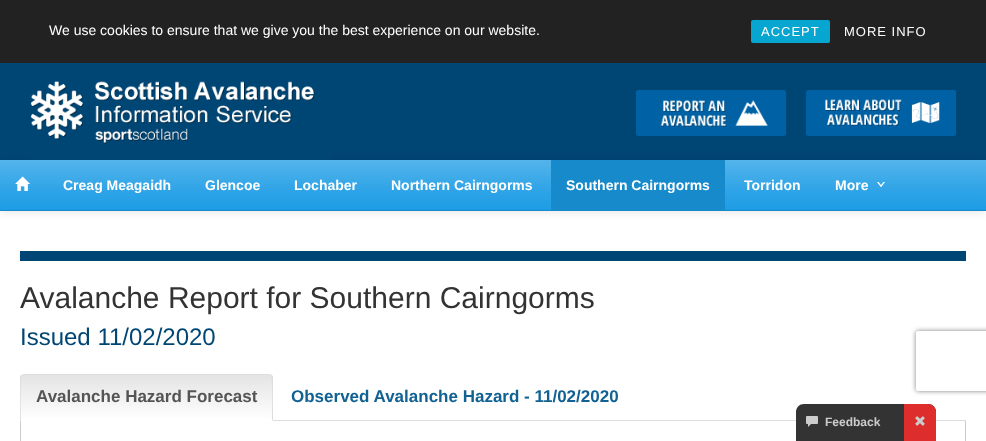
<!DOCTYPE html>
<meta charset="utf-8">
<style>body { margin: 0 } canvas { display: block }</style>
<canvas id="canvas" width="986" height="441"></canvas>
<img id="img1" src="images/1.png" hidden>
<img id="img2" src="images/2.png" hidden>
<img id="img3" src="images/3.png" hidden>
<img id="img4" src="images/4.png" hidden>
<img id="img5" src="images/5.png" hidden>
<img id="img6" src="images/6.png" hidden>
<img id="img7" src="images/7.png" hidden>
<script>
window.onload = function () {
    const canvas = document.getElementById('canvas');
    const context = canvas.getContext('2d');
    context.miterLimit = 4;
    context.fontKerning = 'normal';
    let gradient;

    context.fillStyle = 'rgb(255, 255, 255)';
    context.fillRect(0, 0, 986, 441);
    context.fillStyle = 'rgb(34, 34, 34)';
    context.fillRect(0, 0, 986, 63);
    context.fillStyle = 'rgb(7, 166, 208)';
    context.beginPath();
    context.roundRect(751, 20, 79, 23, 2);
    context.fill();
    context.fillStyle = 'rgb(0, 70, 117)';
    context.fillRect(0, 63, 986, 97);
    context.fillStyle = 'rgba(0, 0, 0, 0.1)';
    context.filter = 'blur(5px)';
    context.beginPath();
    context.rect(0, 161, 986, 51);
    context.fill();
    context.filter = 'none';
    context.drawImage(document.getElementById('img1'), 30, 81, 300, 79);
    context.drawImage(document.getElementById('img2'), 636, 90, 150, 46);
    context.drawImage(document.getElementById('img3'), 806, 90, 150, 46);
    gradient = context.createLinearGradient(493, 160, 493, 210);
    gradient.addColorStop(0, 'rgb(84, 180, 235)');
    gradient.addColorStop(0.6, 'rgb(47, 164, 231)');
    gradient.addColorStop(1, 'rgb(29, 156, 229)');
    context.fillStyle = gradient;
    context.fillRect(0, 160, 986, 50);
    context.fillStyle = 'rgb(23, 138, 204)';
    context.fillRect(0, 210, 986, 1);
    context.drawImage(document.getElementById('img4'), 15, 176, 15, 15);
    context.fillRect(551, 160, 174, 50);
    context.drawImage(document.getElementById('img5'), 877, 182, 8, 6);
    context.fillStyle = 'rgb(0, 70, 117)';
    context.fillRect(20, 251, 946, 10);
    context.fillStyle = 'rgb(221, 221, 221)';
    context.fillRect(273, 420, 693, 1);
    context.save();
    context.beginPath();
    context.roundRect(20, 374, 253, 47, [4, 4, 0, 0]);
    context.clip();
    gradient = context.createLinearGradient(147, 375, 147, 420);
    gradient.addColorStop(0, 'rgb(228, 228, 228)');
    gradient.addColorStop(1, 'rgb(255, 255, 255)');
    context.fillStyle = gradient;
    context.fillRect(20, 375, 253, 45);
    context.restore();
    context.beginPath();
    context.moveTo(24, 374);
    context.lineTo(21, 375);
    context.lineTo(22, 376);
    context.lineTo(24, 375);
    context.lineTo(269, 375);
    context.lineTo(271, 376);
    context.lineTo(272, 375);
    context.lineTo(269, 374);
    context.closePath();
    context.fill();
    context.beginPath();
    context.moveTo(273, 421);
    context.lineTo(273, 378);
    context.bezierCurveTo(273, 377, 272, 376, 272, 375);
    context.lineTo(271, 376);
    context.bezierCurveTo(273, 378, 272, 415, 272, 420);
    context.closePath();
    context.fill();
    context.fillStyle = 'rgb(255, 255, 255)';
    context.beginPath();
    context.moveTo(273, 421);
    context.lineTo(272, 420);
    context.lineTo(21, 420);
    context.lineTo(20, 421);
    context.closePath();
    context.fill();
    context.fillStyle = 'rgb(221, 221, 221)';
    context.beginPath();
    context.moveTo(20, 421);
    context.lineTo(21, 420);
    context.bezierCurveTo(21, 415, 20, 378, 22, 376);
    context.lineTo(21, 375);
    context.lineTo(20, 378);
    context.closePath();
    context.fill();
    context.fillStyle = 'rgb(204, 204, 204)';
    context.fillRect(965, 421, 1, 20);
    context.fillRect(20, 421, 1, 20);
    context.fillStyle = 'rgb(51, 51, 51)';
    context.beginPath();
    context.moveTo(804, 404);
    context.lineTo(928, 404);
    context.bezierCurveTo(932.5, 404, 936, 407.5, 936, 412);
    context.lineTo(936, 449);
    context.lineTo(796, 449);
    context.lineTo(796, 412);
    context.bezierCurveTo(796, 407.5, 799.5, 404, 804, 404);
    context.closePath();
    context.fill();
    context.save();
    context.beginPath();
    context.moveTo(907, 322);
    context.lineTo(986, 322);
    context.lineTo(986, 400);
    context.lineTo(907, 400);
    context.closePath();
    context.moveTo(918, 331);
    context.lineTo(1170, 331);
    context.bezierCurveTo(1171, 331, 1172, 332, 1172, 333);
    context.lineTo(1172, 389);
    context.bezierCurveTo(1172, 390, 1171, 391, 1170, 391);
    context.lineTo(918, 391);
    context.bezierCurveTo(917, 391, 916, 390, 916, 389);
    context.lineTo(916, 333);
    context.bezierCurveTo(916, 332, 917, 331, 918, 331);
    context.closePath();
    context.clip('evenodd');
    context.fillStyle = 'rgb(128, 128, 128)';
    context.filter = 'blur(2.5px)';
    context.beginPath();
    context.roundRect(916, 331, 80, 60, 2);
    context.fill();
    context.filter = 'none';
    context.restore();
    context.drawImage(document.getElementById('img6'), 806, 416, 12, 11);
    context.fillStyle = 'rgb(221, 45, 45)';
    context.beginPath();
    context.roundRect(904, 404, 32, 37, [0, 8, 0, 0]);
    context.fill();
    context.drawImage(document.getElementById('img7'), 915, 416, 10, 10);
    context.font = '14px Liberation Sans';
    context.fillStyle = 'rgb(255, 255, 255)';
    context.fillText('We use cookies to ensure that we give you the best experience on our website.', 49, 35);
    context.letterSpacing = '1px';
    context.font = '13px Liberation Sans';
    context.fillText('ACCEPT', 761, 36);
    context.fillText('MORE INFO', 844, 36);
    context.letterSpacing = '0px';
    context.font = 'bold 14px Liberation Sans';
    context.fillText('Creag Meagaidh', 63, 190);
    context.fillText('Glencoe', 205, 190);
    context.fillText('Lochaber', 294, 190);
    context.fillText('Northern Cairngorms', 391, 190);
    context.fillText('Southern Cairngorms', 566, 190);
    context.fillText('Torridon', 744, 190);
    context.fillText('More', 835, 190);
    context.font = '30px Liberation Sans';
    context.fillStyle = 'rgb(51, 51, 51)';
    context.fillText('Avalanche Report for Southern Cairngorms', 20, 308);
    context.font = '24px Liberation Sans';
    context.fillStyle = 'rgb(0, 70, 116)';
    context.fillText('Issued 11/02/2020', 20, 345);
    context.font = 'bold 17px Liberation Sans';
    context.fillStyle = 'rgb(85, 85, 85)';
    context.fillText('Avalanche Hazard Forecast', 36, 402);
    context.fillStyle = 'rgb(17, 98, 147)';
    context.fillText('Observed Avalanche Hazard - 11/02/2020', 291, 402);
    context.font = 'bold 12px Liberation Sans';
    context.fillStyle = 'rgb(204, 204, 204)';
    context.fillText('Feedback', 825, 426);
};
</script>
